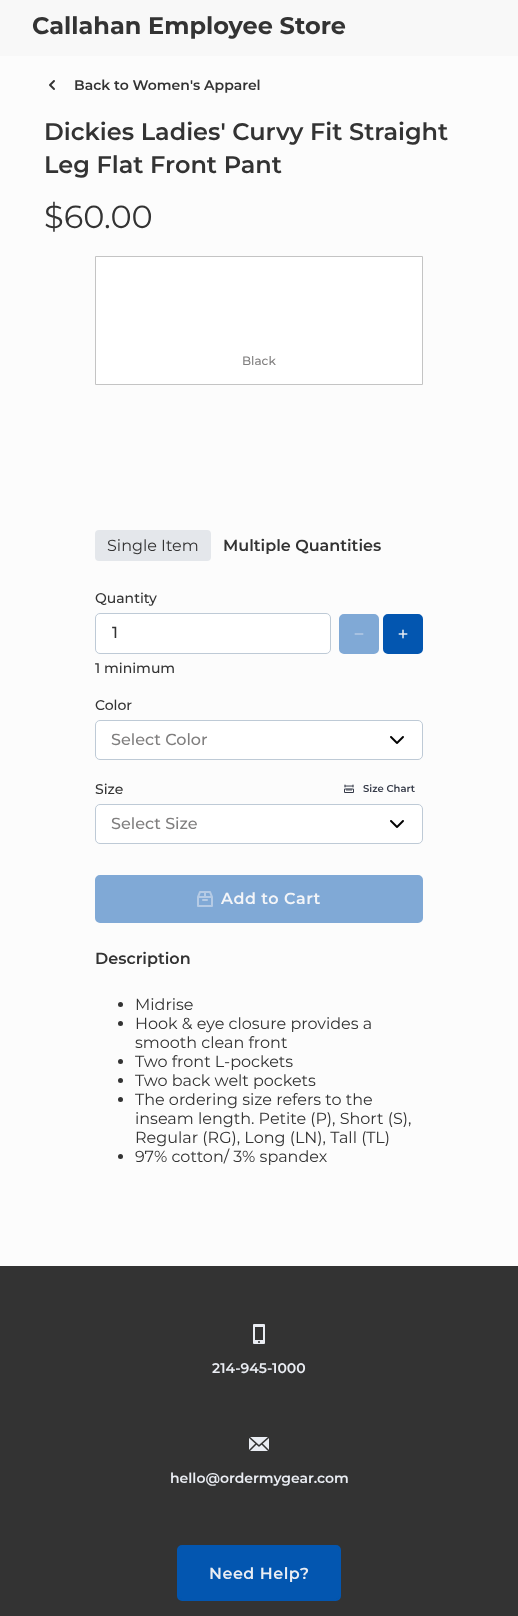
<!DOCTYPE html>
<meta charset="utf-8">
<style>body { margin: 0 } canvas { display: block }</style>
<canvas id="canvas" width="518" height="1616"></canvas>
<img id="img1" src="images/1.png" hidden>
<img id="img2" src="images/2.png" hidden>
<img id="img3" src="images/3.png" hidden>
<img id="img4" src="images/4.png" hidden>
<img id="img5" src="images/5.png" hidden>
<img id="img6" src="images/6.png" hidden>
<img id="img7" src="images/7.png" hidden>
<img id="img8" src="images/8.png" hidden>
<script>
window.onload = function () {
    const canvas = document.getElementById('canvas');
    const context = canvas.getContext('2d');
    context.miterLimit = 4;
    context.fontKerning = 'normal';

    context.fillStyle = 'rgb(252, 252, 252)';
    context.fillRect(0, 0, 518, 1616);
    context.fillStyle = 'rgb(248, 248, 248)';
    context.fillRect(0, 0, 518, 56);
    context.drawImage(document.getElementById('img1'), 49, 80, 6, 10);
    context.fillStyle = 'rgb(255, 255, 255)';
    context.beginPath();
    context.rect(95.5, 256.5, 327, 128);
    context.fill();
    context.strokeStyle = 'rgb(196, 196, 196)';
    context.stroke();
    context.fillStyle = 'rgb(228, 231, 235)';
    context.beginPath();
    context.roundRect(95, 530, 116, 31, 4);
    context.fill();
    context.fillStyle = 'rgb(255, 255, 255)';
    context.beginPath();
    context.roundRect(95.5, 613.5, 235, 40, 4.5);
    context.fill();
    context.strokeStyle = 'rgb(190, 202, 214)';
    context.stroke();
    context.fillStyle = 'rgb(128, 169, 214)';
    context.beginPath();
    context.roundRect(340, 615, 38, 38, 4);
    context.fill();
    context.strokeStyle = 'rgb(128, 169, 214)';
    context.lineWidth = 2;
    context.stroke();
    context.drawImage(document.getElementById('img2'), 354, 633, 10, 2);
    context.fillStyle = 'rgb(3, 86, 176)';
    context.beginPath();
    context.roundRect(384, 615, 38, 38, 4);
    context.fill();
    context.strokeStyle = 'rgb(3, 86, 176)';
    context.stroke();
    context.drawImage(document.getElementById('img3'), 398, 629, 10, 10);
    context.fillStyle = 'rgb(255, 255, 255)';
    context.beginPath();
    context.roundRect(95.5, 720.5, 327, 39, 4.5);
    context.fill();
    context.strokeStyle = 'rgb(190, 202, 214)';
    context.lineWidth = 1;
    context.stroke();
    context.drawImage(document.getElementById('img4'), 390, 736, 14, 8);
    context.drawImage(document.getElementById('img5'), 344, 784, 10, 9);
    context.beginPath();
    context.roundRect(95.5, 804.5, 327, 39, 4.5);
    context.fill();
    context.stroke();
    context.drawImage(document.getElementById('img4'), 390, 820, 14, 8);
    context.fillStyle = 'rgb(128, 169, 214)';
    context.beginPath();
    context.roundRect(96, 876, 326, 46, 4);
    context.fill();
    context.strokeStyle = 'rgb(128, 169, 214)';
    context.lineWidth = 2;
    context.stroke();
    context.drawImage(document.getElementById('img6'), 197, 891, 16, 16);
    context.fillStyle = 'rgb(51, 51, 51)';
    context.beginPath();
    context.arc(120.5, 1004.5, 2.5, 0, 2 * Math.PI);
    context.fill();
    context.beginPath();
    context.arc(120.5, 1023.5, 2.5, 0, 2 * Math.PI);
    context.fill();
    context.beginPath();
    context.arc(120.5, 1061.5, 2.5, 0, 2 * Math.PI);
    context.fill();
    context.beginPath();
    context.arc(120.5, 1080.5, 2.5, 0, 2 * Math.PI);
    context.fill();
    context.beginPath();
    context.arc(120.5, 1099.5, 2.5, 0, 2 * Math.PI);
    context.fill();
    context.beginPath();
    context.arc(120.5, 1156.5, 2.5, 0, 2 * Math.PI);
    context.fill();
    context.fillRect(0, 1266, 518, 350);
    context.drawImage(document.getElementById('img7'), 253, 1324, 12, 20);
    context.drawImage(document.getElementById('img8'), 249, 1437, 20, 14);
    context.fillStyle = 'rgb(3, 86, 176)';
    context.beginPath();
    context.roundRect(178, 1546, 162, 54, 4);
    context.fill();
    context.strokeStyle = 'rgb(3, 86, 176)';
    context.stroke();
    context.font = 'bold 24px Montserrat';
    context.fillStyle = 'rgb(51, 51, 51)';
    context.fillText('Callahan Employee Store', 32, 34);
    context.font = '600 14px Montserrat';
    context.fillText('Back to Women\'s Apparel', 74, 90);
    context.font = '600 24px Montserrat';
    context.fillText('Dickies Ladies\' Curvy Fit Straight', 44, 140);
    context.fillText('Leg Flat Front Pant', 44, 173);
    context.font = '32px Montserrat';
    context.fillText('$60.00', 44, 228);
    context.font = '500 12px Montserrat';
    context.fillStyle = 'rgb(128, 127, 127)';
    context.fillText('Black', 242, 365);
    context.font = '16px Montserrat';
    context.fillStyle = 'rgb(51, 51, 51)';
    context.fillText('Single Item', 107, 551);
    context.font = '600 16px Montserrat';
    context.fillText('Multiple Quantities', 223, 551);
    context.font = '500 14px Montserrat';
    context.fillText('Quantity', 95, 603);
    context.font = '500 16px Montserrat';
    context.fillText('1', 112, 638);
    context.font = '500 14px Montserrat';
    context.fillText('1 minimum', 95, 673);
    context.fillText('Color', 95, 710);
    context.font = '500 16px Montserrat';
    context.fillStyle = 'rgb(128, 127, 127)';
    context.fillText('Select Color', 111, 745);
    context.font = '500 14px Montserrat';
    context.fillStyle = 'rgb(51, 51, 51)';
    context.fillText('Size', 95, 794);
    context.font = '600 10px Montserrat';
    context.fillStyle = 'rgb(53, 58, 72)';
    context.fillText('Size Chart', 363, 792);
    context.font = '500 16px Montserrat';
    context.fillStyle = 'rgb(128, 127, 127)';
    context.fillText('Select Size', 111, 829);
    context.letterSpacing = '0.5px';
    context.font = '600 16px Montserrat';
    context.fillStyle = 'rgb(243, 245, 248)';
    context.fillText('Add to Cart', 221, 904);
    context.letterSpacing = '0px';
    context.fillStyle = 'rgb(51, 51, 51)';
    context.fillText('Description', 95, 964);
    context.font = '16px Montserrat';
    context.fillText('Midrise', 135, 1010);
    context.fillText('Hook & eye closure provides a', 135, 1029);
    context.fillText('smooth clean front', 135, 1048);
    context.fillText('Two front L-pockets', 135, 1067);
    context.fillText('Two back welt pockets', 135, 1086);
    context.fillText('The ordering size refers to the', 135, 1105);
    context.fillText('inseam length. Petite (P), Short (S),', 135, 1124);
    context.fillText('Regular (RG), Long (LN), Tall (TL)', 135, 1143);
    context.fillText('97% cotton/ 3% spandex', 135, 1162);
    context.font = '600 14px Montserrat';
    context.fillStyle = 'rgb(234, 237, 243)';
    context.fillText('214-945-1000', 212, 1373);
    context.fillText('hello@ordermygear.com', 170, 1483);
    context.letterSpacing = '0.5px';
    context.font = '600 16px Montserrat';
    context.fillText('Need Help?', 209, 1579);
};
</script>
